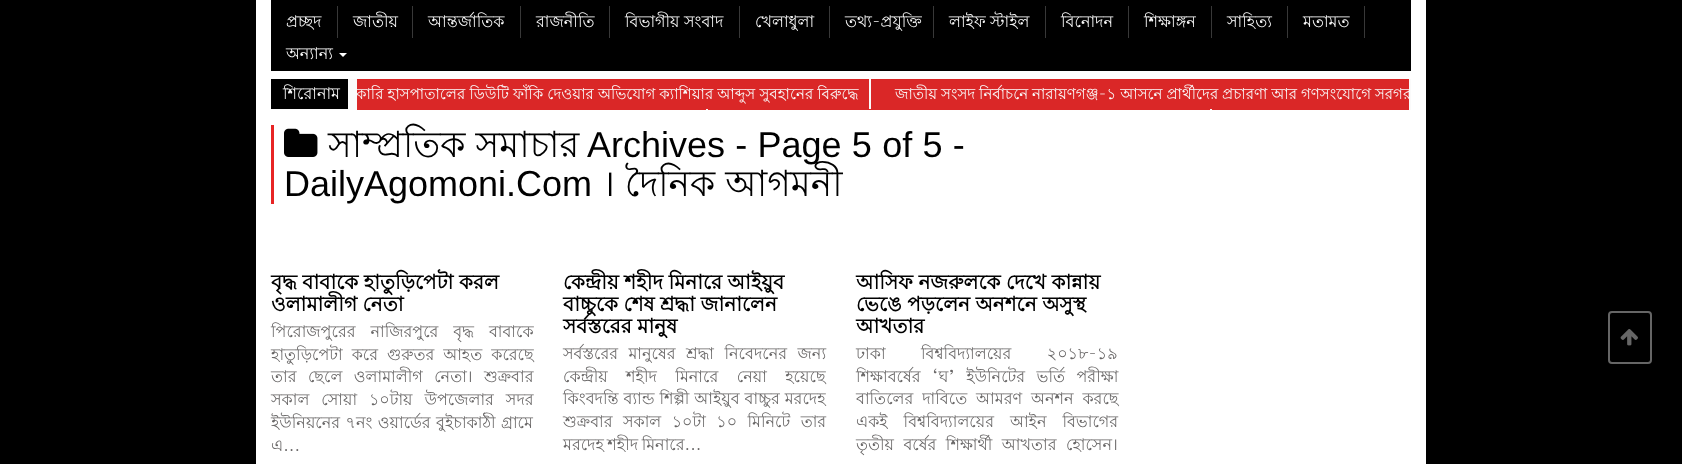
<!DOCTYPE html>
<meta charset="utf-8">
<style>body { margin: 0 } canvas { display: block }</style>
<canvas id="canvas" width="1682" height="464"></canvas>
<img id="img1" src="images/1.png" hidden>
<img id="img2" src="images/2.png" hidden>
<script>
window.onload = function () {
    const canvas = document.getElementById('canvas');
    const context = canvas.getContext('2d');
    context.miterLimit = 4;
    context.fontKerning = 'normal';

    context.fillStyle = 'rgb(0, 0, 0)';
    context.fillRect(0, 0, 1682, 464);
    context.fillStyle = 'rgb(255, 255, 255)';
    context.fillRect(256, 0, 1170, 464);
    context.fillStyle = 'rgb(0, 0, 0)';
    context.fillRect(271, 0, 1140, 71);
    context.fillStyle = 'rgb(56, 56, 56)';
    context.fillRect(337, 6, 1, 32);
    context.fillRect(412, 6, 1, 32);
    context.fillRect(520, 6, 1, 32);
    context.fillRect(609, 6, 1, 32);
    context.fillRect(739, 6, 1, 32);
    context.fillRect(829, 6, 1, 32);
    context.fillRect(933, 6, 1, 32);
    context.fillRect(1045, 6, 1, 32);
    context.fillRect(1128, 6, 1, 32);
    context.fillRect(1211, 6, 1, 32);
    context.fillRect(1287, 6, 1, 32);
    context.fillRect(1364, 6, 1, 32);
    context.fillStyle = 'rgb(255, 255, 255)';
    context.beginPath();
    context.moveTo(339, 53);
    context.lineTo(347, 53);
    context.lineTo(343, 57);
    context.closePath();
    context.fill();
    context.fillStyle = 'rgb(250, 250, 250)';
    context.fillRect(271, 79, 1140, 31);
    context.fillStyle = 'rgb(0, 0, 0)';
    context.fillRect(271, 79, 77, 30);
    context.fillStyle = 'rgb(218, 39, 39)';
    context.fillRect(357, 79, 512, 30);
    context.fillRect(871, 79, 538, 30);
    context.fillRect(357, 109, 349, 1);
    context.fillRect(708, 109, 502, 1);
    context.fillRect(1212, 109, 197, 1);
    context.fillStyle = 'rgb(231, 36, 36)';
    context.fillRect(271, 125, 3, 79);
    context.drawImage(document.getElementById('img1'), 284, 128, 34, 29);
    context.beginPath();
    context.roundRect(1609, 312, 42, 51, 3);
    context.strokeStyle = 'rgb(102, 102, 102)';
    context.lineWidth = 2;
    context.stroke();
    context.drawImage(document.getElementById('img2'), 1620, 329, 18, 17);
    context.font = '16px Lohit Bengali';
    context.fillStyle = 'rgb(250, 250, 250)';
    context.fillText('প্রচ্ছদ', 286, 27);
    context.fillText('জাতীয়', 353, 27);
    context.fillText('আন্তর্জাতিক', 428, 27);
    context.fillText('রাজনীতি', 536, 27);
    context.fillText('বিভাগীয় সংবাদ', 625, 27);
    context.fillText('খেলাধুলা', 755, 27);
    context.fillText('তথ্য-প্রযুক্তি', 845, 27);
    context.fillText('লাইফ স্টাইল', 949, 27);
    context.fillText('বিনোদন', 1061, 27);
    context.fillText('শিক্ষাঙ্গন', 1144, 27);
    context.fillText('সাহিত্য', 1227, 27);
    context.fillText('মতামত', 1303, 27);
    context.fillText('অন্যান্য', 286, 59);
    context.fillText('শিরোনাম', 283, 99);
    context.font = '15px Lohit Bengali';
    context.fillText('কারি হাসপাতালের ডিউটি ফাঁকি দেওয়ার অভিযোগ ক্যাশিয়ার আব্দুস সুবহানের বিরুদ্ধে', 356, 99);
    context.save();
    context.beginPath();
    context.rect(357, 79, 1052, 31);
    context.clip();
    context.wordSpacing = '-0.25px';
    context.fillText('জাতীয় সংসদ নির্বাচনে নারায়ণগঞ্জ-১ আসনে প্রার্থীদের প্রচারণা আর গণসংযোগে সরগর', 895, 99);
    context.restore();
    context.font = '36px Lohit Bengali';
    context.fillStyle = 'rgb(0, 0, 0)';
    context.fillText('সাম্প্রতিক সমাচার', 328, 157);
    context.wordSpacing = '0.25px';
    context.font = '36px Liberation Sans';
    context.fillText('Archives - Page 5 of 5 -', 587, 157);
    context.wordSpacing = '0px';
    context.fillText('DailyAgomoni.Com', 284, 196);
    context.font = '36px Lohit Bengali';
    context.fillText('। দৈনিক আগমনী', 602, 196);
    context.font = 'bold 20px Lohit Bengali';
    context.fillText('বৃদ্ধ বাবাকে হাতুড়িপেটা করল', 271, 289);
    context.fillText('ওলামালীগ নেতা', 271, 311);
    context.wordSpacing = '10.5px';
    context.font = '16px Lohit Bengali';
    context.fillStyle = 'rgb(105, 103, 103)';
    context.fillText('পিরোজপুরের নাজিরপুরে বৃদ্ধ বাবাকে', 271, 337);
    context.wordSpacing = '4.5px';
    context.fillText('হাতুড়িপেটা করে গুরুতর আহত করেছে', 271, 360);
    context.wordSpacing = '7px';
    context.fillText('তার ছেলে ওলামালীগ নেতা। শুক্রবার', 271, 382);
    context.wordSpacing = '7.5px';
    context.fillText('সকাল সোয়া ১০টায় উপজেলার সদর', 271, 405);
    context.wordSpacing = '1px';
    context.fillText('ইউনিয়নের ৭নং ওয়ার্ডের বুইচাকাঠী গ্রামে', 271, 428);
    context.wordSpacing = '0px';
    context.fillText('এ...', 271, 451);
    context.font = 'bold 20px Lohit Bengali';
    context.fillStyle = 'rgb(0, 0, 0)';
    context.fillText('কেন্দ্রীয় শহীদ মিনারে আইয়ুব', 563, 289);
    context.fillText('বাচ্চুকে শেষ শ্রদ্ধা জানালেন', 563, 311);
    context.fillText('সর্বস্তরের মানুষ', 563, 333);
    context.wordSpacing = '6px';
    context.font = '16px Lohit Bengali';
    context.fillStyle = 'rgb(105, 103, 103)';
    context.fillText('সর্বস্তরের মানুষের শ্রদ্ধা নিবেদনের জন্য', 563, 359);
    context.wordSpacing = '14px';
    context.fillText('কেন্দ্রীয় শহীদ মিনারে নেয়া হয়েছে', 563, 382);
    context.wordSpacing = '0.5px';
    context.fillText('কিংবদন্তি ব্যান্ড শিল্পী আইয়ুব বাচ্চুর মরদেহ', 563, 404);
    context.wordSpacing = '6px';
    context.fillText('শুক্রবার সকাল ১০টা ১০ মিনিটে তার', 563, 427);
    context.wordSpacing = '-1px';
    context.fillText('মরদেহ শহীদ মিনারে...', 563, 450);
    context.wordSpacing = '0px';
    context.font = 'bold 20px Lohit Bengali';
    context.fillStyle = 'rgb(0, 0, 0)';
    context.fillText('আসিফ নজরুলকে দেখে কান্নায়', 856, 289);
    context.fillText('ভেঙে পড়লেন অনশনে অসুস্থ', 856, 311);
    context.fillText('আখতার', 856, 333);
    context.wordSpacing = '31px';
    context.font = '16px Lohit Bengali';
    context.fillStyle = 'rgb(105, 103, 103)';
    context.fillText('ঢাকা বিশ্ববিদ্যালয়ের ২০১৮-১৯', 856, 359);
    context.wordSpacing = '7px';
    context.fillText('শিক্ষাবর্ষের ‘ঘ’ ইউনিটের ভর্তি পরীক্ষা', 856, 382);
    context.wordSpacing = '4.5px';
    context.fillText('বাতিলের দাবিতে আমরণ অনশন করছে', 856, 404);
    context.wordSpacing = '11.5px';
    context.fillText('একই বিশ্ববিদ্যালয়ের আইন বিভাগের', 856, 427);
    context.wordSpacing = '5px';
    context.fillText('তৃতীয় বর্ষের শিক্ষার্থী আখতার হোসেন।', 856, 450);
};
</script>
